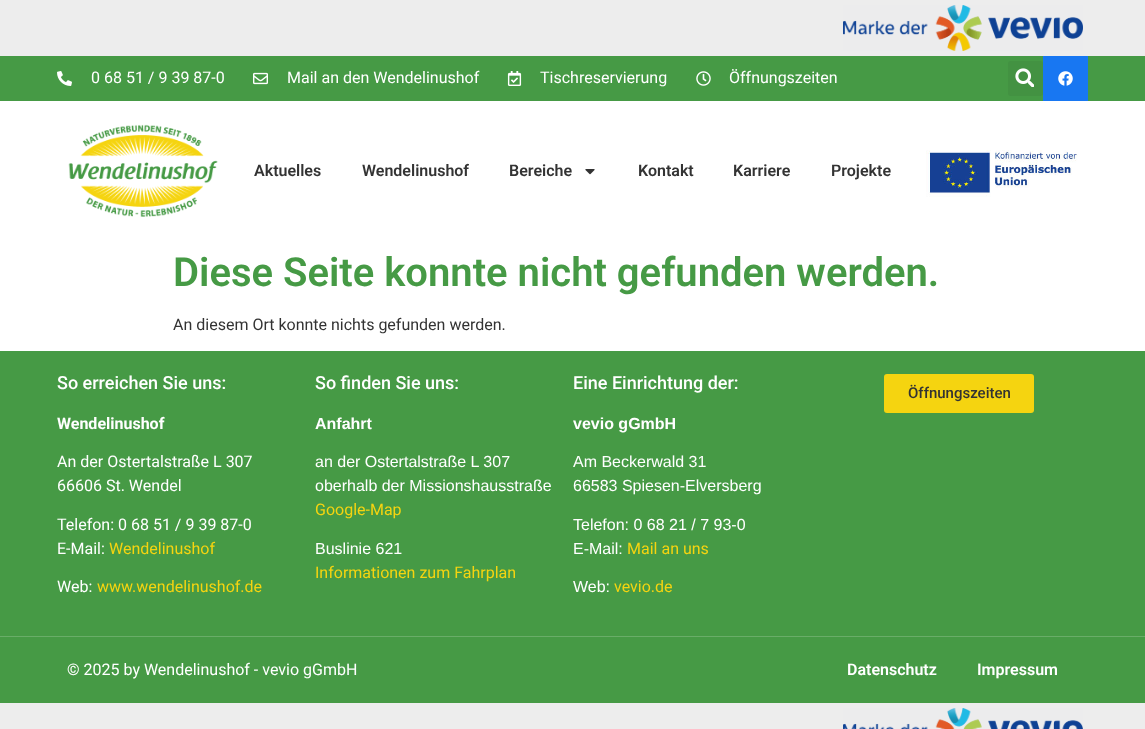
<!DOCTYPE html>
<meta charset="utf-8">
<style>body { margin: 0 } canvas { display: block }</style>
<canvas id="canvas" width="1145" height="729"></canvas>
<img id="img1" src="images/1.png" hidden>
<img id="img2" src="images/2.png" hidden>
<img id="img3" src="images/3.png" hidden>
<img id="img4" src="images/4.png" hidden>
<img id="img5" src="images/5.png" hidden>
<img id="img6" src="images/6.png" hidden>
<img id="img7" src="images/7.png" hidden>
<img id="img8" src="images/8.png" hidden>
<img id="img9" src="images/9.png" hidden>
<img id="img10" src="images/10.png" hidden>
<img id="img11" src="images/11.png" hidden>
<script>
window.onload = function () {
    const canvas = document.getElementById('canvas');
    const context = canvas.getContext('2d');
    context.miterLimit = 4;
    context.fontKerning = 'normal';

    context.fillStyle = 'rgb(255, 255, 255)';
    context.fillRect(0, 0, 1145, 729);
    context.fillStyle = 'rgb(237, 237, 237)';
    context.fillRect(0, 0, 1145, 56);
    context.drawImage(document.getElementById('img1'), 843, 5, 240, 46);
    context.fillStyle = 'rgb(70, 154, 69)';
    context.fillRect(0, 56, 1145, 45);
    context.drawImage(document.getElementById('img2'), 57, 71, 15, 15);
    context.drawImage(document.getElementById('img3'), 253, 72, 15, 13);
    context.drawImage(document.getElementById('img4'), 507, 71, 15, 15);
    context.drawImage(document.getElementById('img5'), 696, 71, 15, 15);
    context.fillStyle = 'rgb(67, 146, 66)';
    context.beginPath();
    context.roundRect(1008, 61, 35, 35, 3);
    context.fill();
    context.drawImage(document.getElementById('img6'), 1015, 68, 19, 19);
    context.fillStyle = 'rgb(24, 119, 242)';
    context.fillRect(1043, 56, 45, 45);
    context.drawImage(document.getElementById('img7'), 1058, 71, 15, 15);
    context.drawImage(document.getElementById('img8'), 68, 124, 150, 93);
    context.drawImage(document.getElementById('img9'), 585, 169, 10, 6);
    context.drawImage(document.getElementById('img10'), 926, 150, 152, 47);
    context.fillStyle = 'rgb(70, 154, 69)';
    context.fillRect(0, 351, 1145, 285);
    context.fillStyle = 'rgb(245, 212, 16)';
    context.beginPath();
    context.roundRect(884, 374, 150, 39, 3);
    context.fill();
    context.fillStyle = 'rgb(70, 154, 69)';
    context.fillRect(0, 637, 1145, 66);
    context.fillStyle = 'rgb(105, 173, 104)';
    context.fillRect(0, 636, 1145, 1);
    context.fillStyle = 'rgb(237, 237, 237)';
    context.fillRect(0, 703, 1145, 26);
    context.drawImage(document.getElementById('img11'), 843, 708, 240, 21);
    context.font = '16px Roboto';
    context.fillStyle = 'rgb(255, 255, 255)';
    context.fillText('0 68 51 / 9 39 87-0', 91, 83);
    context.fillText('Mail an den Wendelinushof', 287, 83);
    context.fillText('Tischreservierung', 540, 83);
    context.fillText('Öffnungszeiten', 729, 83);
    context.font = '600 16px Roboto';
    context.fillStyle = 'rgb(51, 51, 51)';
    context.fillText('Aktuelles', 254, 176);
    context.fillText('Wendelinushof', 362, 176);
    context.fillText('Bereiche', 509, 176);
    context.fillText('Kontakt', 638, 176);
    context.fillText('Karriere', 733, 176);
    context.fillText('Projekte', 831, 176);
    context.font = '600 40px Roboto';
    context.fillStyle = 'rgb(70, 154, 69)';
    context.fillText('Diese Seite konnte nicht gefunden werden.', 173, 286);
    context.font = '16px Roboto';
    context.fillStyle = 'rgb(51, 51, 51)';
    context.fillText('An diesem Ort konnte nichts gefunden werden.', 173, 330);
    context.font = '500 18px Roboto';
    context.fillStyle = 'rgb(255, 255, 255)';
    context.fillText('So erreichen Sie uns:', 57, 389);
    context.font = 'bold 16px Roboto';
    context.fillText('Wendelinushof', 57, 429);
    context.font = '16px Roboto';
    context.fillText('An der Ostertalstraße L 307', 57, 467);
    context.fillText('66606 St. Wendel', 57, 491);
    context.fillText('Telefon: 0 68 51 / 9 39 87-0', 57, 530);
    context.fillText('E-Mail:', 57, 554);
    context.fillStyle = 'rgb(245, 212, 16)';
    context.fillText('Wendelinushof', 109, 554);
    context.fillStyle = 'rgb(255, 255, 255)';
    context.fillText('Web:', 57, 592);
    context.fillStyle = 'rgb(245, 212, 16)';
    context.fillText('www.wendelinushof.de', 97, 592);
    context.font = '500 18px Roboto';
    context.fillStyle = 'rgb(255, 255, 255)';
    context.fillText('So finden Sie uns:', 315, 389);
    context.font = 'bold 16px Liberation Sans';
    context.fillText('Anfahrt', 315, 429);
    context.font = '16px Liberation Sans';
    context.fillText('an der Ostertalstraße L 307', 315, 467);
    context.fillText('oberhalb der Missionshausstraße', 315, 491);
    context.font = '16px Roboto';
    context.fillStyle = 'rgb(245, 212, 16)';
    context.fillText('Google-Map', 315, 515);
    context.font = '16px Liberation Sans';
    context.fillStyle = 'rgb(255, 255, 255)';
    context.fillText('Buslinie 621', 315, 554);
    context.font = '16px Roboto';
    context.fillStyle = 'rgb(245, 212, 16)';
    context.fillText('Informationen zum Fahrplan', 315, 578);
    context.font = '500 18px Roboto';
    context.fillStyle = 'rgb(255, 255, 255)';
    context.fillText('Eine Einrichtung der:', 573, 389);
    context.font = 'bold 16px Liberation Sans';
    context.fillText('vevio gGmbH', 573, 429);
    context.font = '16px Liberation Sans';
    context.fillText('Am Beckerwald 31', 573, 467);
    context.fillText('66583 Spiesen-Elversberg', 573, 491);
    context.fillText('Telefon: 0 68 21 / 7 93-0', 573, 530);
    context.fillText('E-Mail:', 573, 554);
    context.font = '16px Roboto';
    context.fillStyle = 'rgb(245, 212, 16)';
    context.fillText('Mail an uns', 627, 554);
    context.font = '16px Liberation Sans';
    context.fillStyle = 'rgb(255, 255, 255)';
    context.fillText('Web:', 573, 592);
    context.font = '16px Roboto';
    context.fillStyle = 'rgb(245, 212, 16)';
    context.fillText('vevio.de', 614, 592);
    context.font = '500 15px Roboto';
    context.fillStyle = 'rgb(51, 51, 51)';
    context.fillText('Öffnungszeiten', 908, 398);
    context.font = '16px Roboto';
    context.fillStyle = 'rgb(255, 255, 255)';
    context.fillText('© 2025 by Wendelinushof - vevio gGmbH', 67, 675);
    context.font = '600 16px Roboto';
    context.fillText('Datenschutz', 847, 675);
    context.fillText('Impressum', 977, 675);
};
</script>
